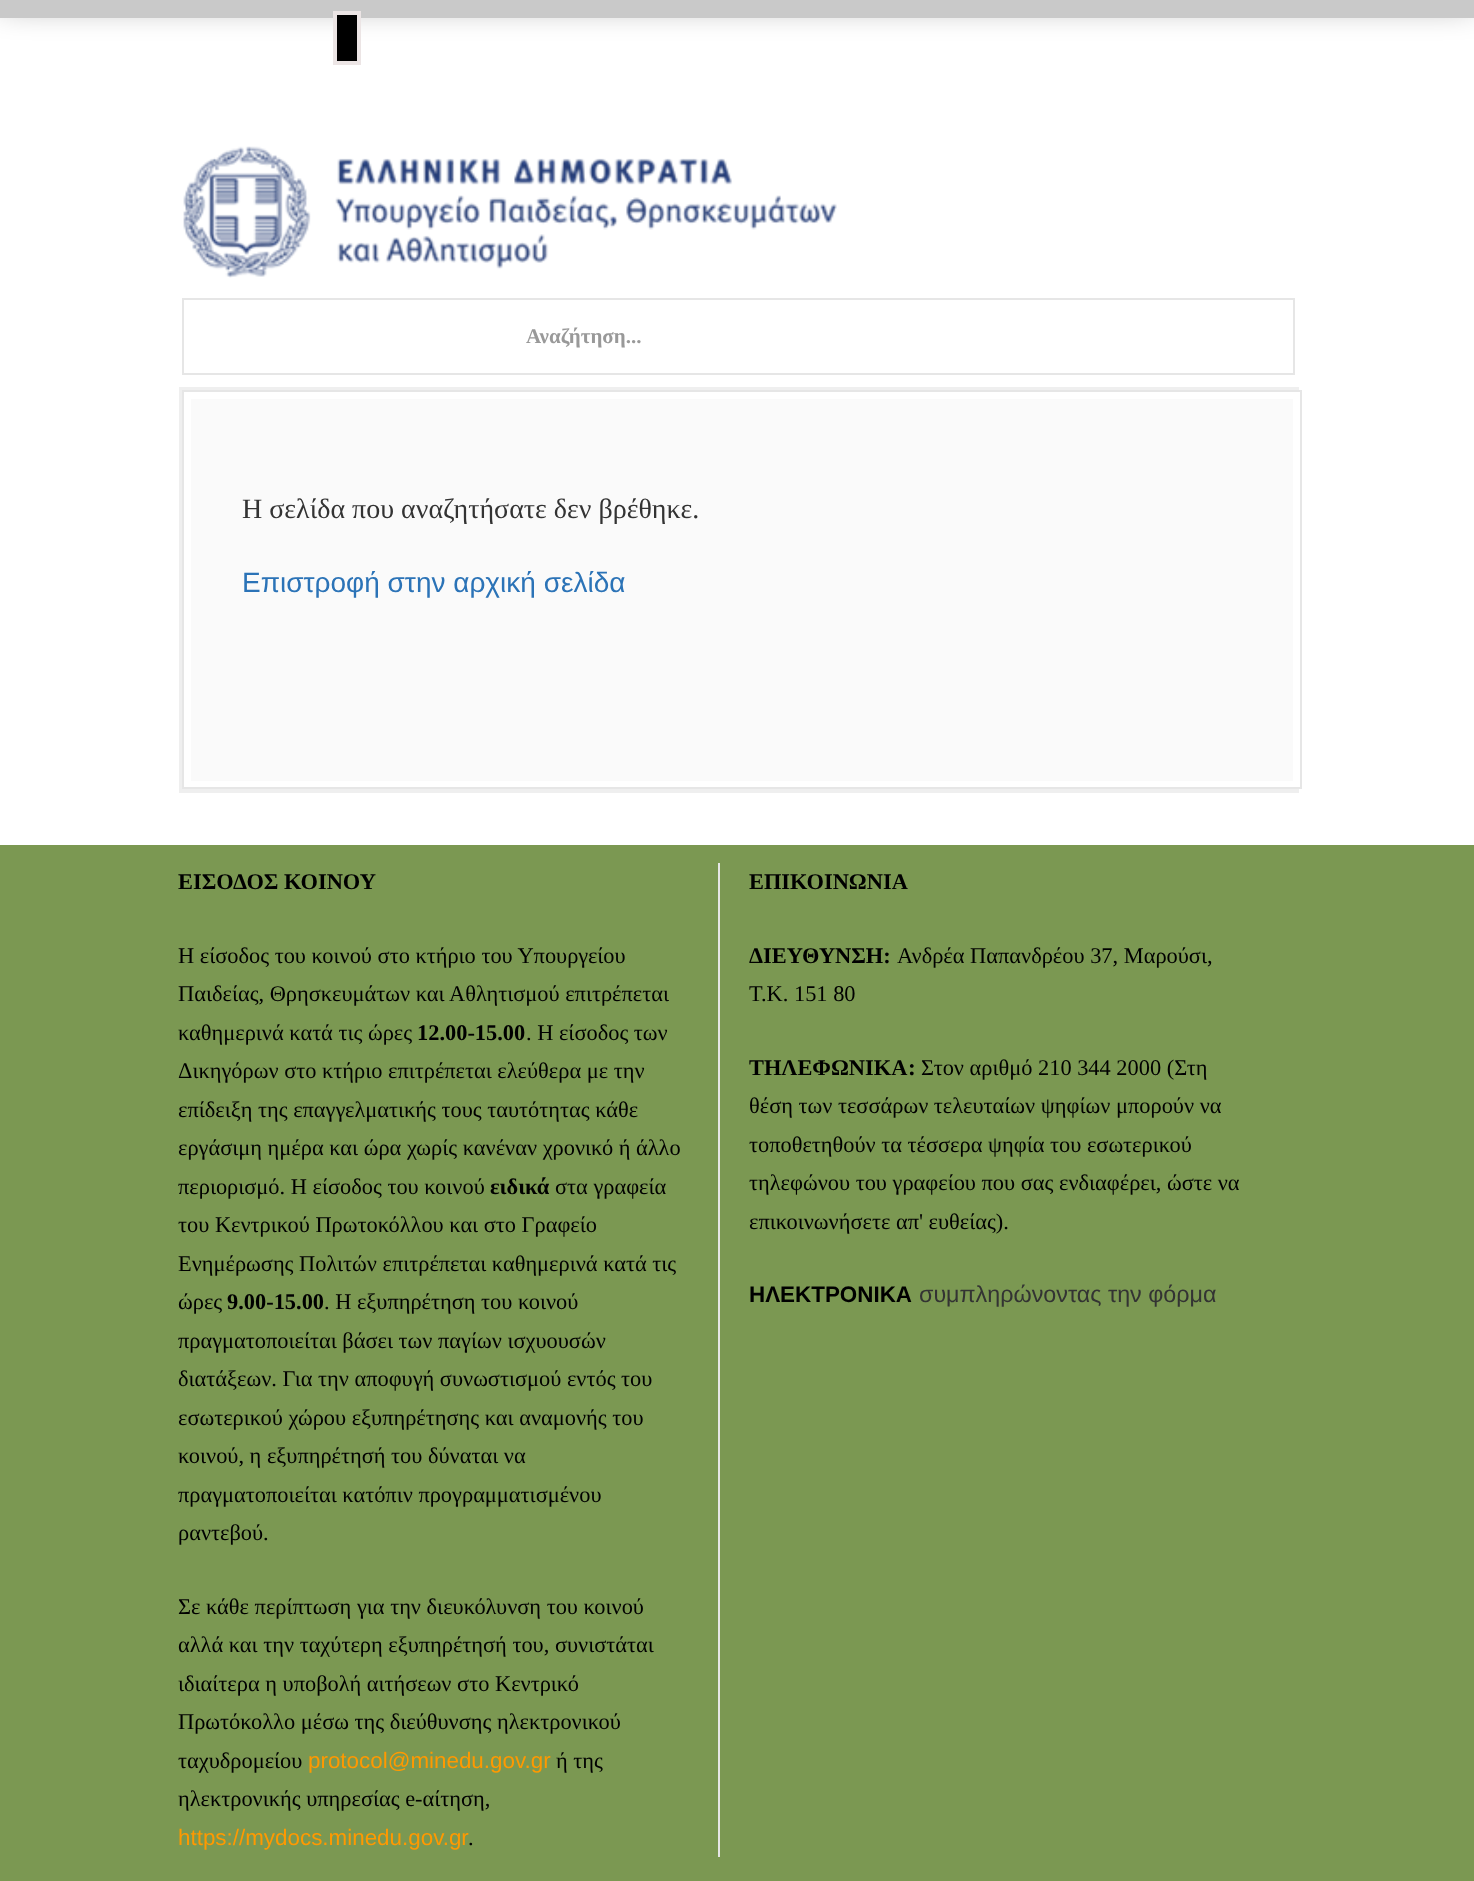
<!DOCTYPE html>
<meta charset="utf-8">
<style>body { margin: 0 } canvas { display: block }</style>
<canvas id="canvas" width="1474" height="1881"></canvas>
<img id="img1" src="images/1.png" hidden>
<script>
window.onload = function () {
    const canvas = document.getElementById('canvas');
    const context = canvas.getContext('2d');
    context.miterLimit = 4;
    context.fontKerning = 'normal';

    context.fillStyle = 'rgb(255, 255, 255)';
    context.fillRect(0, 0, 1474, 1881);
    context.fillStyle = 'rgba(0, 0, 0, 0.6)';
    context.filter = 'blur(17.5px)';
    context.beginPath();
    context.rect(0, -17, 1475, 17);
    context.fill();
    context.filter = 'none';
    context.fillStyle = 'rgb(201, 201, 201)';
    context.fillRect(0, 0, 1474, 18);
    context.fillStyle = 'rgb(0, 0, 0)';
    context.beginPath();
    context.rect(335, 13, 24, 50);
    context.fill();
    context.strokeStyle = 'rgb(236, 229, 229)';
    context.lineWidth = 4;
    context.stroke();
    context.drawImage(document.getElementById('img1'), 183, 146, 654, 132);
    context.strokeStyle = 'rgb(230, 230, 230)';
    context.lineWidth = 2;
    context.strokeRect(183, 299, 1111, 75);
    context.fillStyle = 'rgb(239, 239, 239)';
    context.fillRect(179, 387, 1120, 406);
    context.fillStyle = 'rgb(255, 255, 255)';
    context.fillRect(184, 392, 1115, 395);
    context.strokeRect(183, 391, 1118, 397);
    context.fillStyle = 'rgb(250, 250, 250)';
    context.fillRect(191, 399, 1102, 382);
    context.fillStyle = 'rgb(123, 152, 82)';
    context.fillRect(0, 845, 1474, 1036);
    context.fillStyle = 'rgb(230, 230, 230)';
    context.fillRect(718, 863, 2, 994);
    context.font = 'bold 21px Liberation Serif';
    context.fillStyle = 'rgb(153, 153, 153)';
    context.fillText('Αναζήτηση...', 526, 343);
    context.font = '28px Liberation Serif';
    context.fillStyle = 'rgb(51, 51, 51)';
    context.fillText('Η σελίδα που αναζητήσατε δεν βρέθηκε.', 242, 518);
    context.font = '28px Liberation Sans';
    context.fillStyle = 'rgb(43, 115, 183)';
    context.fillText('Επιστροφή στην αρχική σελίδα', 242, 592);
    context.font = 'bold 22.4px Liberation Serif';
    context.fillStyle = 'rgb(0, 0, 0)';
    context.fillText('ΕΙΣΟΔΟΣ ΚΟΙΝΟΥ', 178, 889);
    context.font = '22.4px Liberation Serif';
    context.fillText('Η είσοδος του κοινού στο κτήριο του Υπουργείου', 178, 963);
    context.fillText('Παιδείας, Θρησκευμάτων και Αθλητισμού επιτρέπεται', 178, 1001);
    context.fillText('καθημερινά κατά τις ώρες', 178, 1040);
    context.font = 'bold 22.4px Liberation Serif';
    context.fillText('12.00-15.00', 417, 1040);
    context.font = '22.4px Liberation Serif';
    context.fillText('. Η είσοδος των', 526, 1040);
    context.fillText('Δικηγόρων στο κτήριο επιτρέπεται ελεύθερα με την', 178, 1078);
    context.fillText('επίδειξη της επαγγελματικής τους ταυτότητας κάθε', 178, 1117);
    context.fillText('εργάσιμη ημέρα και ώρα χωρίς κανέναν χρονικό ή άλλο', 178, 1155);
    context.fillText('περιορισμό. Η είσοδος του κοινού', 178, 1194);
    context.font = 'bold 22.4px Liberation Serif';
    context.fillText('ειδικά', 490, 1194);
    context.font = '22.4px Liberation Serif';
    context.fillText('στα γραφεία', 555, 1194);
    context.fillText('του Κεντρικού Πρωτοκόλλου και στο Γραφείο', 178, 1232);
    context.fillText('Ενημέρωσης Πολιτών επιτρέπεται καθημερινά κατά τις', 178, 1271);
    context.fillText('ώρες', 178, 1309);
    context.font = 'bold 22.4px Liberation Serif';
    context.fillText('9.00-15.00', 227, 1309);
    context.font = '22.4px Liberation Serif';
    context.fillText('. Η εξυπηρέτηση του κοινού', 324, 1309);
    context.fillText('πραγματοποιείται βάσει των παγίων ισχυουσών', 178, 1348);
    context.fillText('διατάξεων. Για την αποφυγή συνωστισμού εντός του', 178, 1386);
    context.fillText('εσωτερικού χώρου εξυπηρέτησης και αναμονής του', 178, 1425);
    context.fillText('κοινού, η εξυπηρέτησή του δύναται να', 178, 1463);
    context.fillText('πραγματοποιείται κατόπιν προγραμματισμένου', 178, 1502);
    context.fillText('ραντεβού.', 178, 1540);
    context.fillText('Σε κάθε περίπτωση για την διευκόλυνση του κοινού', 178, 1614);
    context.fillText('αλλά και την ταχύτερη εξυπηρέτησή του, συνιστάται', 178, 1652);
    context.fillText('ιδιαίτερα η υποβολή αιτήσεων στο Κεντρικό', 178, 1691);
    context.fillText('Πρωτόκολλο μέσω της διεύθυνσης ηλεκτρονικού', 178, 1729);
    context.fillText('ταχυδρομείου', 178, 1768);
    context.font = '22.4px Liberation Sans';
    context.fillStyle = 'rgb(255, 153, 0)';
    context.fillText('protocol@minedu.gov.gr', 308, 1768);
    context.font = '22.4px Liberation Serif';
    context.fillStyle = 'rgb(0, 0, 0)';
    context.fillText('ή της', 556, 1768);
    context.fillText('ηλεκτρονικής υπηρεσίας e-αίτηση,', 178, 1806);
    context.font = '22.4px Liberation Sans';
    context.fillStyle = 'rgb(255, 153, 0)';
    context.fillText('https://mydocs.minedu.gov.gr', 178, 1845);
    context.font = '22.4px Liberation Serif';
    context.fillStyle = 'rgb(0, 0, 0)';
    context.fillText('.', 468, 1845);
    context.font = 'bold 22.4px Liberation Serif';
    context.fillText('ΕΠΙΚΟΙΝΩΝΙΑ', 749, 889);
    context.fillText('ΔΙΕΥΘΥΝΣΗ:', 749, 963);
    context.font = '22.4px Liberation Serif';
    context.fillText('Ανδρέα Παπανδρέου 37, Μαρούσι,', 897, 963);
    context.fillText('Τ.Κ. 151 80', 749, 1001);
    context.font = 'bold 22.4px Liberation Serif';
    context.fillText('ΤΗΛΕΦΩΝΙΚΑ', 749, 1075);
    context.font = 'bold 23.3px Liberation Serif';
    context.fillText(':', 908, 1075);
    context.font = '22.4px Liberation Serif';
    context.fillText('Στον αριθμό 210 344 2000 (Στη', 921, 1075);
    context.fillText('θέση των τεσσάρων τελευταίων ψηφίων μπορούν να', 749, 1113);
    context.fillText('τοποθετηθούν τα τέσσερα ψηφία του εσωτερικού', 749, 1152);
    context.fillText('τηλεφώνου του γραφείου που σας ενδιαφέρει, ώστε να', 749, 1190);
    context.fillText('επικοινωνήσετε απ\' ευθείας).', 749, 1229);
    context.font = 'bold 22.4px Liberation Sans';
    context.fillText('ΗΛΕΚΤΡΟΝΙΚΑ', 749, 1302);
    context.font = '23.3px Liberation Sans';
    context.fillStyle = 'rgb(51, 51, 51)';
    context.fillText('συμπληρώνοντας την φόρμα', 919, 1302);
};
</script>
